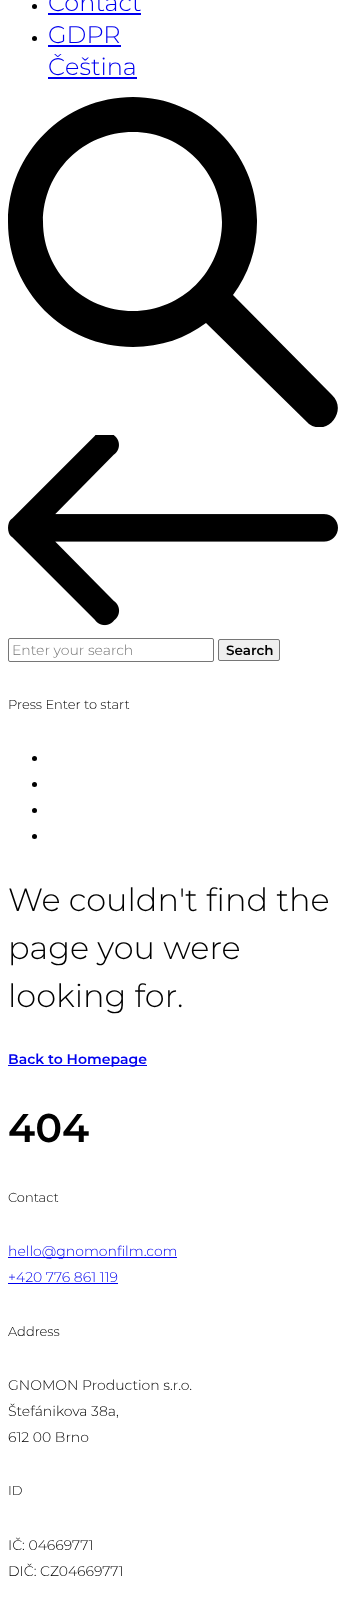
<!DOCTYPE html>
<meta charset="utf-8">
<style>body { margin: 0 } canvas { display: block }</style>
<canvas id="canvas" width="346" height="1598"></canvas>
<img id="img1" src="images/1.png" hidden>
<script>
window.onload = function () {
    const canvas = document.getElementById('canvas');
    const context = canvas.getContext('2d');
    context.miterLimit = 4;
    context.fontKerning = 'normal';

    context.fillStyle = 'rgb(255, 255, 255)';
    context.fillRect(0, 0, 346, 1598);
    context.fillStyle = 'rgb(0, 0, 0)';
    context.beginPath();
    context.arc(34.5, 6.5, 2.5, 0, 2 * Math.PI);
    context.fill();
    context.fillStyle = 'rgb(0, 0, 238)';
    context.fillRect(48, 13, 93, 2);
    context.fillStyle = 'rgb(0, 0, 0)';
    context.beginPath();
    context.arc(34.5, 38.5, 2.5, 0, 2 * Math.PI);
    context.fill();
    context.fillStyle = 'rgb(0, 0, 238)';
    context.fillRect(48, 45, 73, 2);
    context.fillRect(48, 77, 89, 2);
    context.save();
    context.beginPath();
    context.rect(8, 97, 330, 330);
    context.clip();
    context.fillStyle = 'rgb(0, 0, 0)';
    context.beginPath();
    context.moveTo(332, 395);
    context.lineTo(233, 295);
    context.bezierCurveTo(248, 275, 257, 250, 257, 222);
    context.bezierCurveTo(258, 153, 201, 97, 133, 97);
    context.bezierCurveTo(64, 97, 8, 153, 8, 222);
    context.bezierCurveTo(8, 291, 64, 347, 133, 347);
    context.bezierCurveTo(161, 347, 186, 338, 206, 323);
    context.lineTo(309, 424);
    context.bezierCurveTo(328, 437, 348, 410, 332, 395);
    context.closePath();
    context.moveTo(43, 222);
    context.bezierCurveTo(43, 172, 83, 132, 133, 132);
    context.bezierCurveTo(182, 132, 222, 172, 222, 222);
    context.bezierCurveTo(222, 271, 182, 311, 133, 311);
    context.bezierCurveTo(83, 311, 43, 271, 43, 222);
    context.closePath();
    context.fill();
    context.restore();
    context.drawImage(document.getElementById('img1'), 8, 435, 330, 191);
    context.beginPath();
    context.roundRect(8.5, 638.5, 205, 23, 1.5);
    context.strokeStyle = 'rgb(118, 118, 118)';
    context.stroke();
    context.fillStyle = 'rgb(239, 239, 239)';
    context.beginPath();
    context.roundRect(218.5, 639.5, 61, 21, 1.5);
    context.fill();
    context.stroke();
    context.fillStyle = 'rgb(0, 0, 0)';
    context.beginPath();
    context.arc(34.5, 758.5, 2.5, 0, 2 * Math.PI);
    context.fill();
    context.beginPath();
    context.arc(34.5, 784.5, 2.5, 0, 2 * Math.PI);
    context.fill();
    context.beginPath();
    context.arc(34.5, 810.5, 2.5, 0, 2 * Math.PI);
    context.fill();
    context.beginPath();
    context.arc(34.5, 836.5, 2.5, 0, 2 * Math.PI);
    context.fill();
    context.fillStyle = 'rgb(0, 0, 238)';
    context.fillRect(8, 1065, 139, 1);
    context.fillRect(8, 1257, 169, 1);
    context.fillRect(8, 1283, 110, 1);
    context.font = '300 24px Montserrat';
    context.fillText('Contact', 48, 11);
    context.fillText('GDPR', 48, 43);
    context.fillText('Čeština', 48, 75);
    context.font = '300 14px Montserrat';
    context.fillStyle = 'rgb(117, 117, 117)';
    context.fillText('Enter your search', 12, 655);
    context.font = '600 13.5px Montserrat';
    context.fillStyle = 'rgb(0, 0, 0)';
    context.fillText('Search', 226, 655);
    context.font = '300 13px Montserrat';
    context.fillText('Press Enter to start', 8, 709);
    context.font = '300 32px Montserrat';
    context.fillText('We couldn\'t find the', 8, 911);
    context.fillText('page you were', 8, 959);
    context.fillText('looking for.', 8, 1007);
    context.font = '600 14px Montserrat';
    context.fillStyle = 'rgb(0, 0, 238)';
    context.fillText('Back to Homepage', 8, 1064);
    context.font = '600 40px Montserrat';
    context.fillStyle = 'rgb(0, 0, 0)';
    context.fillText('404', 8, 1142);
    context.font = '300 13px Montserrat';
    context.fillText('Contact', 8, 1202);
    context.font = '300 14px Montserrat';
    context.fillStyle = 'rgb(0, 0, 238)';
    context.fillText('hello@gnomonfilm.com', 8, 1256);
    context.fillText('+420 776 861 119', 8, 1282);
    context.font = '300 13px Montserrat';
    context.fillStyle = 'rgb(0, 0, 0)';
    context.fillText('Address', 8, 1336);
    context.font = '300 14px Montserrat';
    context.fillText('GNOMON Production s.r.o.', 8, 1390);
    context.fillText('Štefánikova 38a,', 8, 1416);
    context.fillText('612 00 Brno', 8, 1442);
    context.font = '300 13px Montserrat';
    context.fillText('ID', 8, 1495);
    context.font = '300 14px Montserrat';
    context.fillText('IČ: 04669771', 8, 1550);
    context.fillText('DIČ: CZ04669771', 8, 1576);
};
</script>
